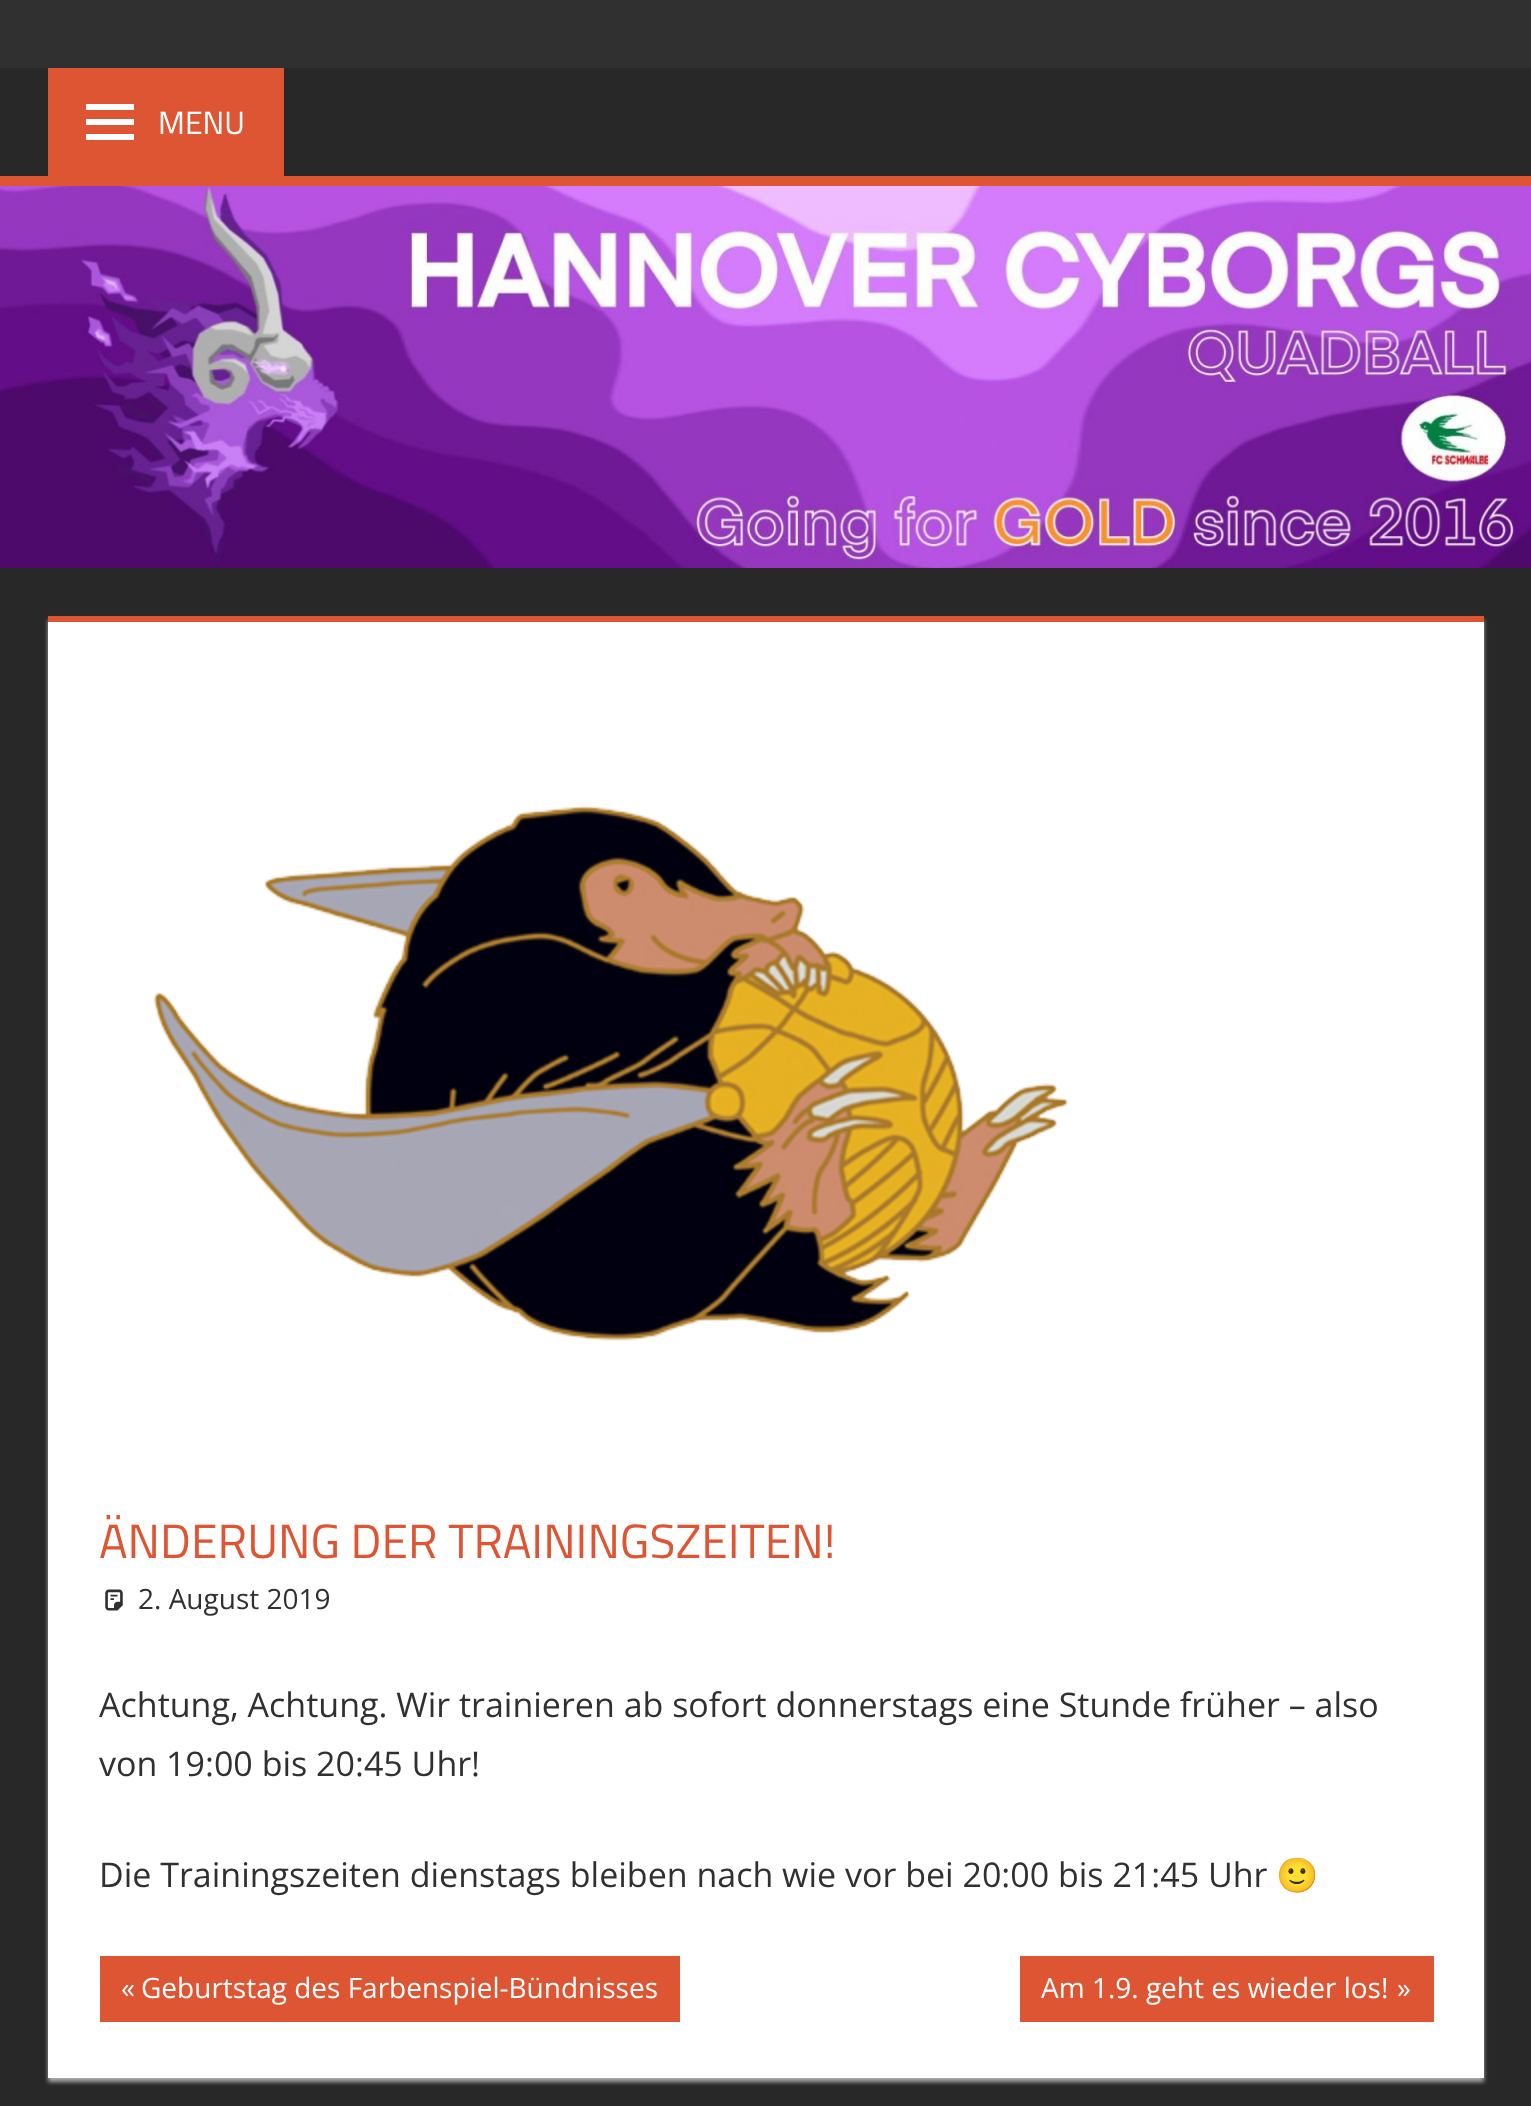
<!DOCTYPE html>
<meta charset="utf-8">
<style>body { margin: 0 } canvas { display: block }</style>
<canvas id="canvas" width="1531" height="2106"></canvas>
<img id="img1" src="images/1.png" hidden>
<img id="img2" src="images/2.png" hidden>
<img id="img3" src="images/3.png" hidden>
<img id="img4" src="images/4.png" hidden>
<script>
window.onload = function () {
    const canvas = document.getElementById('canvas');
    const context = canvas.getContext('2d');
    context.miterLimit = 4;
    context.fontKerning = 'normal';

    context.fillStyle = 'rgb(40, 40, 40)';
    context.fillRect(0, 0, 1531, 2106);
    context.fillStyle = 'rgb(48, 48, 48)';
    context.fillRect(0, 0, 1531, 68);
    context.fillStyle = 'rgb(221, 85, 51)';
    context.fillRect(0, 176, 1531, 10);
    context.fillRect(48, 68, 236, 108);
    context.drawImage(document.getElementById('img1'), 86, 104, 48, 36);
    context.drawImage(document.getElementById('img2'), 0, 186, 1531, 382);
    context.fillStyle = 'rgb(170, 170, 170)';
    context.filter = 'blur(2px)';
    context.beginPath();
    context.rect(48, 620, 1436, 1462);
    context.fill();
    context.filter = 'none';
    context.fillStyle = 'rgb(255, 255, 255)';
    context.fillRect(48, 622, 1436, 1456);
    context.fillStyle = 'rgb(221, 85, 51)';
    context.fillRect(48, 616, 1436, 6);
    context.drawImage(document.getElementById('img3'), 153, 805, 916, 536);
    context.drawImage(document.getElementById('img4'), 105, 1589, 18, 22);
    context.fillRect(100, 1956, 580, 66);
    context.fillRect(1020, 1956, 414, 66);
    context.font = '32px Titillium Web';
    context.fillStyle = 'rgb(255, 255, 255)';
    context.fillText('MENU', 158, 134);
    context.font = '48px Titillium Web';
    context.fillStyle = 'rgb(221, 85, 51)';
    context.fillText('ÄNDERUNG DER TRAININGSZEITEN!', 99, 1558);
    context.font = '28px Open Sans';
    context.fillStyle = 'rgb(48, 48, 48)';
    context.fillText('2. August 2019', 138, 1609);
    context.font = '34px Open Sans';
    context.fillText('Achtung, Achtung. Wir trainieren ab sofort donnerstags eine Stunde früher – also', 99, 1717);
    context.fillText('von 19:00 bis 20:45 Uhr!', 99, 1776);
    context.fillText('Die Trainingszeiten dienstags bleiben nach wie vor bei 20:00 bis 21:45 Uhr', 99, 1887);
    context.font = '34px Noto Color Emoji';
    context.fillText('🙂', 1276, 1887);
    context.font = '28px Open Sans';
    context.fillStyle = 'rgb(255, 255, 255)';
    context.fillText('«', 121, 1998);
    context.fillText('Geburtstag des Farbenspiel-Bündnisses', 141, 1998);
    context.fillText('Am 1.9. geht es wieder los!', 1041, 1998);
    context.fillText('»', 1397, 1998);
};
</script>
